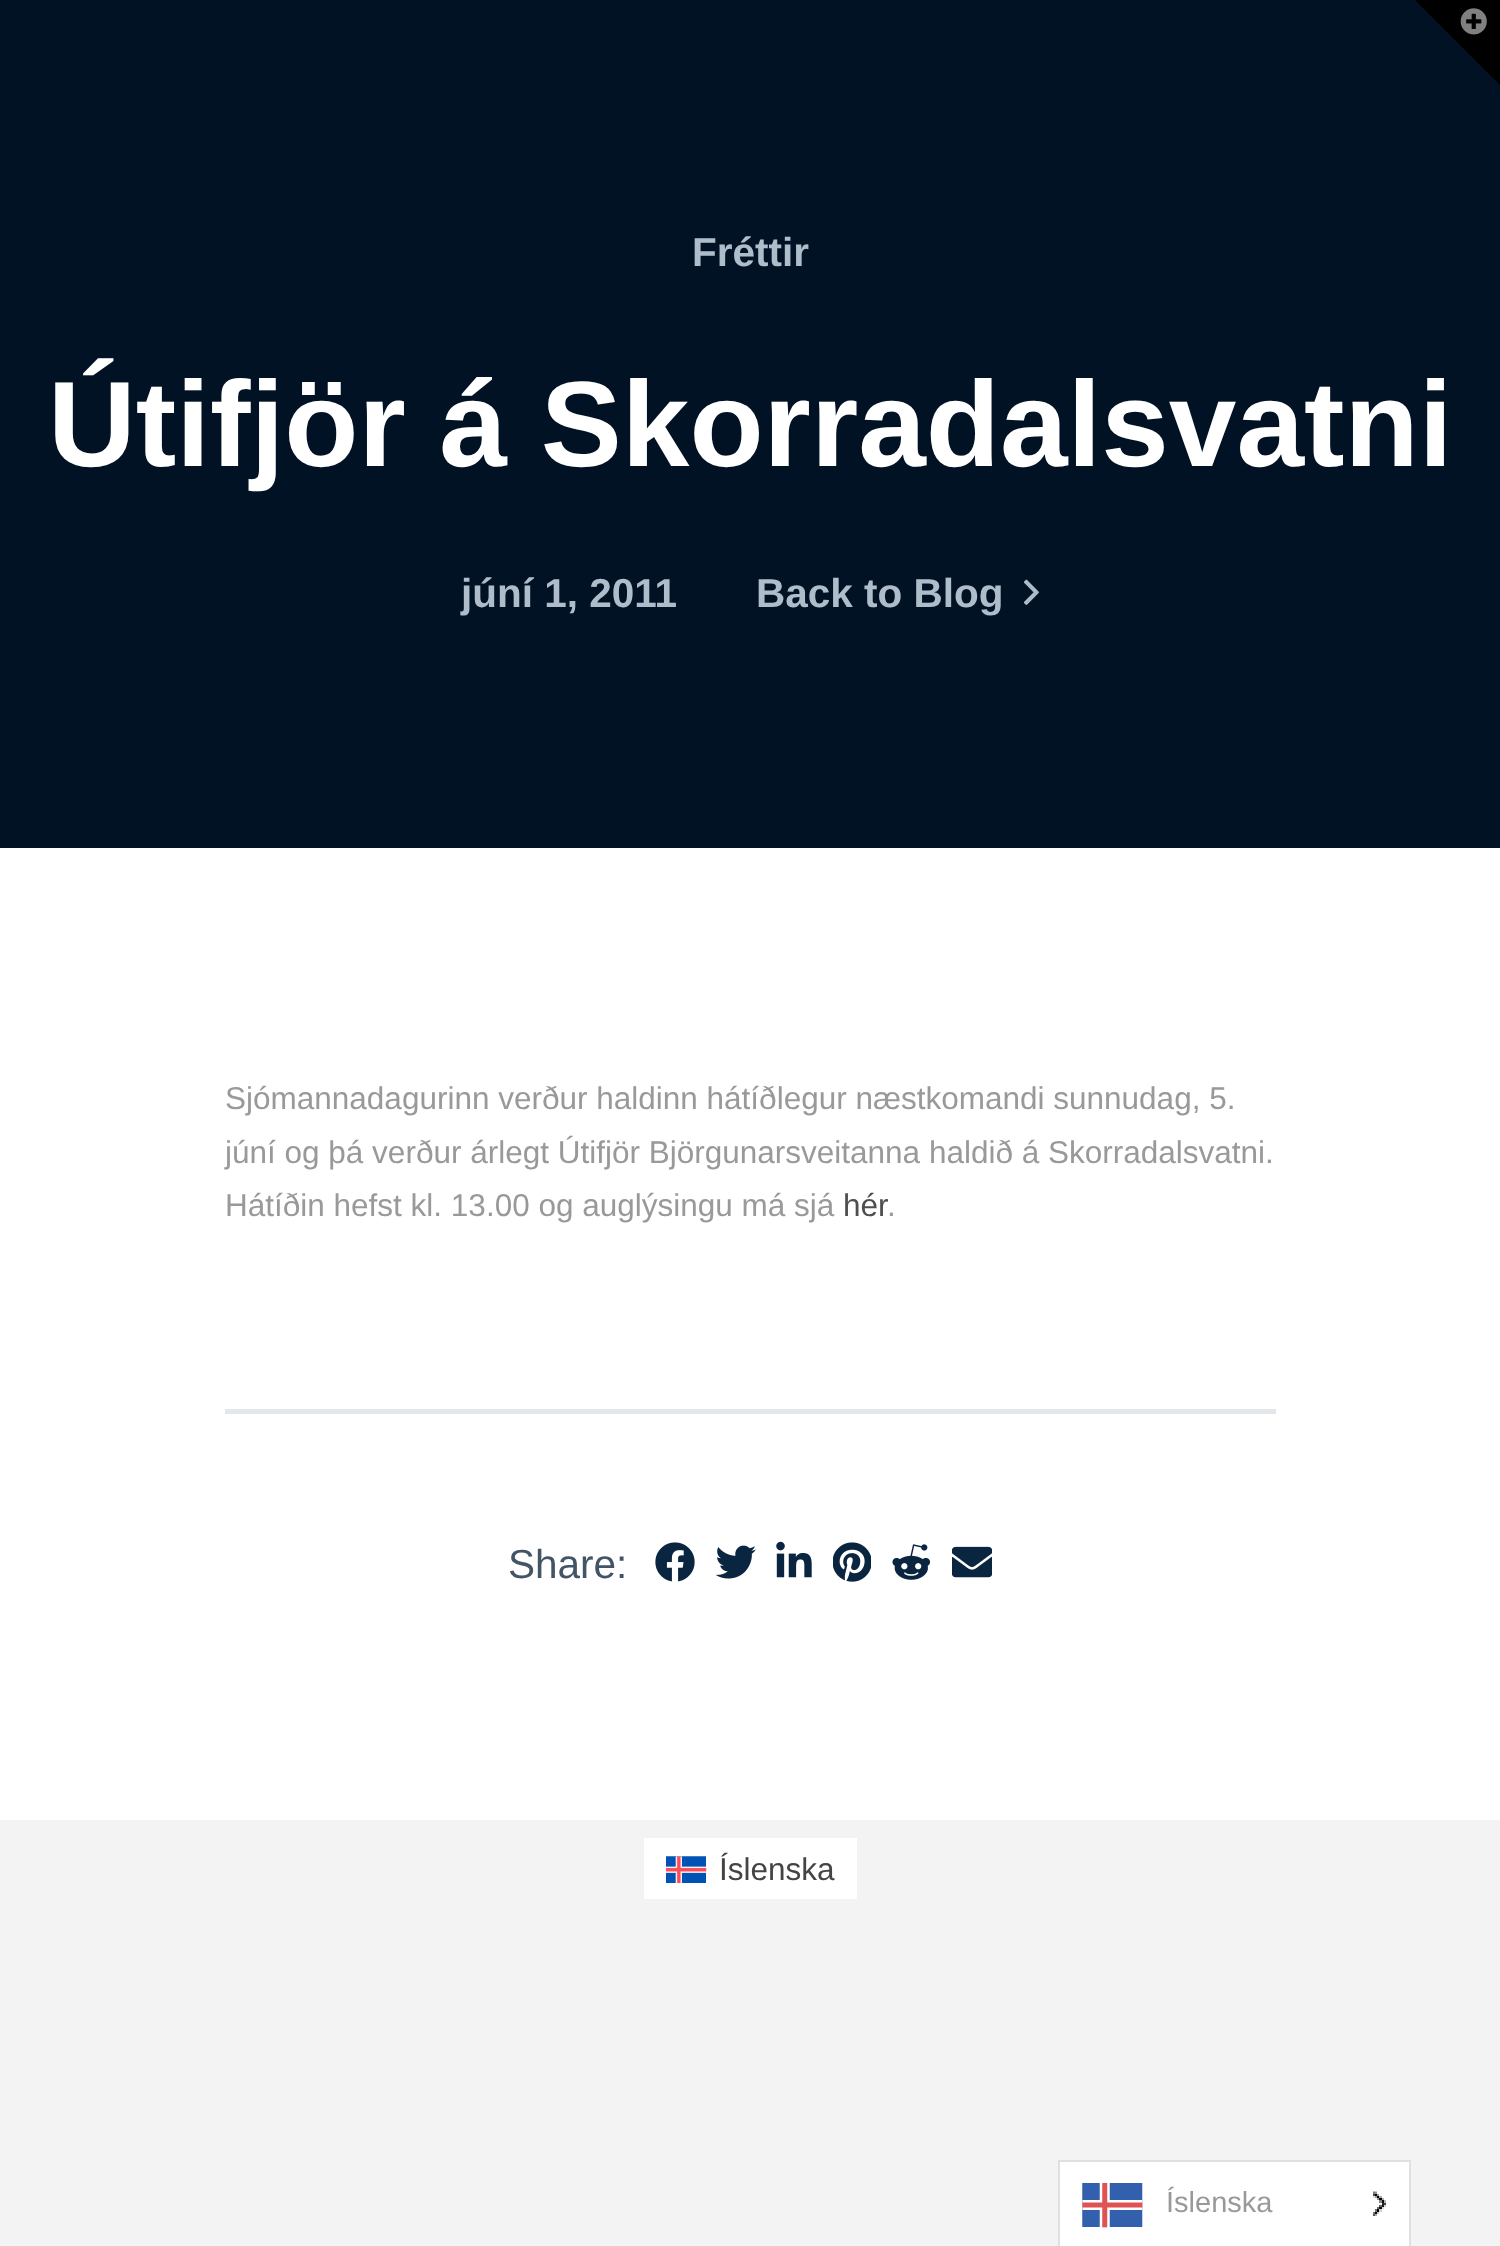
<!DOCTYPE html>
<meta charset="utf-8">
<style>body { margin: 0 } canvas { display: block }</style>
<canvas id="canvas" width="1500" height="2246"></canvas>
<img id="img1" src="images/1.png" hidden>
<img id="img2" src="images/2.png" hidden>
<img id="img3" src="images/3.png" hidden>
<img id="img4" src="images/4.png" hidden>
<img id="img5" src="images/5.png" hidden>
<img id="img6" src="images/6.png" hidden>
<img id="img7" src="images/7.png" hidden>
<img id="img8" src="images/8.png" hidden>
<img id="img9" src="images/9.png" hidden>
<img id="img10" src="images/10.png" hidden>
<img id="img11" src="images/11.png" hidden>
<script>
window.onload = function () {
    const canvas = document.getElementById('canvas');
    const context = canvas.getContext('2d');
    context.miterLimit = 4;
    context.fontKerning = 'normal';

    context.fillStyle = 'rgb(243, 243, 243)';
    context.fillRect(0, 0, 1500, 2246);
    context.fillStyle = 'rgb(0, 18, 36)';
    context.fillRect(0, 0, 1500, 848);
    context.fillStyle = 'rgb(0, 0, 0)';
    context.beginPath();
    context.moveTo(1415, 0);
    context.lineTo(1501, 0);
    context.lineTo(1458, 43);
    context.closePath();
    context.fill();
    context.beginPath();
    context.moveTo(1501, 0);
    context.lineTo(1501, 86);
    context.lineTo(1458, 43);
    context.closePath();
    context.fill();
    context.drawImage(document.getElementById('img1'), 1460, 8, 27, 27);
    context.drawImage(document.getElementById('img2'), 1023, 579, 16, 26);
    context.fillStyle = 'rgb(255, 255, 255)';
    context.fillRect(0, 848, 1500, 972);
    context.fillStyle = 'rgb(228, 231, 234)';
    context.fillRect(225, 1409, 1051, 5);
    context.drawImage(document.getElementById('img3'), 655, 1542, 40, 40);
    context.drawImage(document.getElementById('img4'), 716, 1545, 40, 34);
    context.drawImage(document.getElementById('img5'), 776, 1541, 36, 37);
    context.drawImage(document.getElementById('img6'), 833, 1542, 38, 40);
    context.drawImage(document.getElementById('img7'), 892, 1544, 38, 36);
    context.drawImage(document.getElementById('img8'), 952, 1546, 40, 32);
    context.fillStyle = 'rgb(255, 255, 255)';
    context.fillRect(644, 1838, 213, 61);
    context.drawImage(document.getElementById('img9'), 666, 1856, 41, 27);
    context.beginPath();
    context.rect(1059, 2161, 351, 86);
    context.fill();
    context.strokeStyle = 'rgb(224, 224, 224)';
    context.lineWidth = 2;
    context.stroke();
    context.drawImage(document.getElementById('img10'), 1082, 2183, 61, 45);
    context.drawImage(document.getElementById('img11'), 1373, 2191, 13, 25);
    context.font = 'bold 40.5px Liberation Sans';
    context.fillStyle = 'rgb(175, 189, 202)';
    context.fillText('Fréttir', 692, 266);
    context.font = 'bold 121.5px Liberation Sans';
    context.fillStyle = 'rgb(255, 255, 255)';
    context.fillText('Útifjör á Skorradalsvatni', 48, 466);
    context.font = 'bold 40.5px Liberation Sans';
    context.fillStyle = 'rgb(175, 189, 202)';
    context.fillText('júní 1, 2011', 461, 607);
    context.fillText('Back to Blog', 756, 607);
    context.font = '31.5px Liberation Sans';
    context.fillStyle = 'rgb(153, 153, 153)';
    context.fillText('Sjómannadagurinn verður haldinn hátíðlegur næstkomandi sunnudag, 5.', 225, 1109);
    context.fillText('júní og þá verður árlegt Útifjör Björgunarsveitanna haldið á Skorradalsvatni.', 225, 1163);
    context.fillText('Hátíðin hefst kl. 13.00 og auglýsingu má sjá', 225, 1216);
    context.fillStyle = 'rgb(78, 78, 78)';
    context.fillText('hér', 843, 1216);
    context.fillStyle = 'rgb(153, 153, 153)';
    context.fillText('.', 887, 1216);
    context.font = '40.5px Liberation Sans';
    context.fillStyle = 'rgb(66, 84, 102)';
    context.fillText('Share:', 508, 1578);
    context.font = '31.5px Liberation Sans';
    context.fillStyle = 'rgb(68, 68, 68)';
    context.fillText('Íslenska', 719, 1880);
    context.font = '29px Liberation Sans';
    context.fillStyle = 'rgb(153, 153, 153)';
    context.fillText('Íslenska', 1166, 2212);
};
</script>
